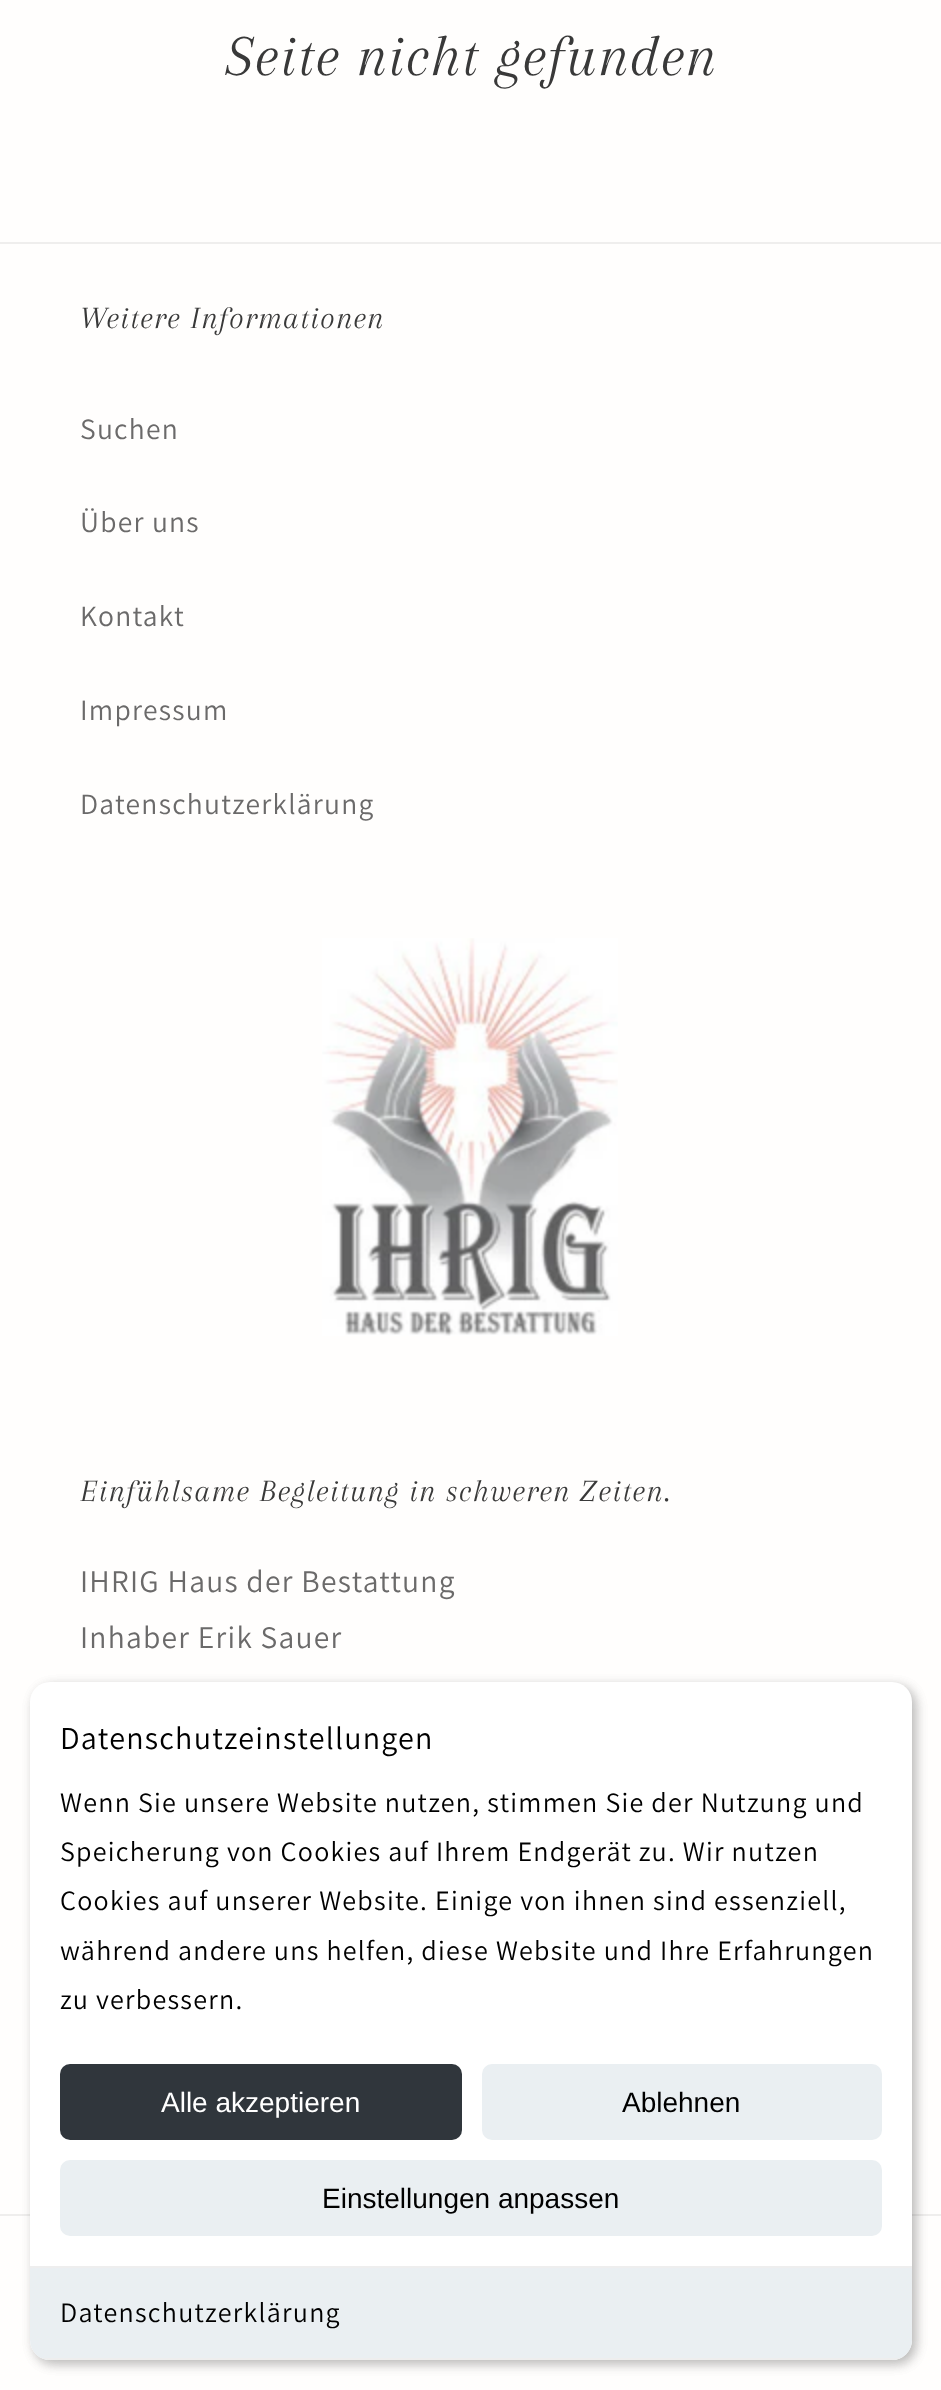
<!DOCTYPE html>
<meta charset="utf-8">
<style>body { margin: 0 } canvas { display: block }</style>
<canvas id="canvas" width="941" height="2390"></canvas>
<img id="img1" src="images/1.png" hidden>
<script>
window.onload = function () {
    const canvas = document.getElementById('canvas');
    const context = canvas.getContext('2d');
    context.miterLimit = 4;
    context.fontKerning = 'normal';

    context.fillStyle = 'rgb(255, 254, 253)';
    context.fillRect(0, 0, 941, 2390);
    context.fillStyle = 'rgb(239, 238, 237)';
    context.fillRect(0, 242, 941, 2);
    context.drawImage(document.getElementById('img1'), 322, 938, 296, 398);
    context.fillRect(0, 2214, 941, 2);
    context.fillStyle = 'rgba(0, 0, 0, 0.15)';
    context.filter = 'blur(6px)';
    context.beginPath();
    context.roundRect(34, 1686, 882, 678, 20);
    context.fill();
    context.filter = 'none';
    context.filter = 'blur(6px)';
    context.beginPath();
    context.roundRect(34, 1686, 882, 678, 20);
    context.fill();
    context.filter = 'none';
    context.fillStyle = 'rgb(255, 255, 255)';
    context.beginPath();
    context.roundRect(30, 1682, 882, 678, 20);
    context.fill();
    context.fillStyle = 'rgb(48, 54, 60)';
    context.beginPath();
    context.roundRect(60, 2064, 402, 76, 10);
    context.fill();
    context.fillStyle = 'rgb(234, 239, 242)';
    context.beginPath();
    context.roundRect(482, 2064, 400, 76, 10);
    context.fill();
    context.beginPath();
    context.roundRect(60, 2160, 822, 76, 10);
    context.fill();
    context.beginPath();
    context.roundRect(30, 2266, 882, 94, [0, 0, 20, 20]);
    context.fill();
    context.fillStyle = 'rgb(238, 238, 238)';
    context.fillRect(30, 2266, 882, 2);
    context.save();
    context.beginPath();
    context.roundRect(30, 1682, 882, 678, 20);
    context.clip();
    context.fillRect(41, 2358, 860, 2);
    context.restore();
    context.letterSpacing = '1.2px';
    context.font = 'italic 60px Arapey';
    context.fillStyle = 'rgb(57, 57, 57)';
    context.fillText('Seite nicht gefunden', 226, 75);
    context.font = 'italic 32px Arapey';
    context.fillText('Weitere Informationen', 80, 328);
    context.letterSpacing = '1.25px';
    context.font = '29.5px Assistant';
    context.fillStyle = 'rgb(107, 106, 106)';
    context.fillText('Suchen', 80, 439);
    context.fillText('Über uns', 80, 532);
    context.fillText('Kontakt', 80, 626);
    context.fillText('Impressum', 80, 720);
    context.fillText('Datenschutzerklärung', 80, 814);
    context.letterSpacing = '1.2px';
    context.font = 'italic 32px Arapey';
    context.fillStyle = 'rgb(57, 57, 57)';
    context.fillText('Einfühlsame Begleitung in schweren Zeiten.', 80, 1501);
    context.letterSpacing = '1.25px';
    context.font = '31.5px Assistant';
    context.fillStyle = 'rgb(107, 106, 106)';
    context.fillText('IHRIG Haus der Bestattung', 80, 1592);
    context.fillText('Inhaber Erik Sauer', 80, 1648);
    context.font = '32px Assistant';
    context.fillStyle = 'rgb(0, 0, 0)';
    context.fillText('Datenschutzeinstellungen', 60, 1749);
    context.font = '28px Assistant';
    context.fillText('Wenn Sie unsere Website nutzen, stimmen Sie der Nutzung und', 60, 1812);
    context.fillText('Speicherung von Cookies auf Ihrem Endgerät zu. Wir nutzen', 60, 1861);
    context.fillText('Cookies auf unserer Website. Einige von ihnen sind essenziell,', 60, 1910);
    context.fillText('während andere uns helfen, diese Website und Ihre Erfahrungen', 60, 1960);
    context.fillText('zu verbessern.', 60, 2009);
    context.letterSpacing = '0px';
    context.font = '28px Liberation Sans';
    context.fillStyle = 'rgb(255, 255, 255)';
    context.fillText('Alle akzeptieren', 161, 2112);
    context.fillStyle = 'rgb(0, 0, 0)';
    context.fillText('Ablehnen', 622, 2112);
    context.fillText('Einstellungen anpassen', 322, 2208);
    context.letterSpacing = '1.25px';
    context.font = '28px Assistant';
    context.fillText('Datenschutzerklärung', 60, 2322);
};
</script>
